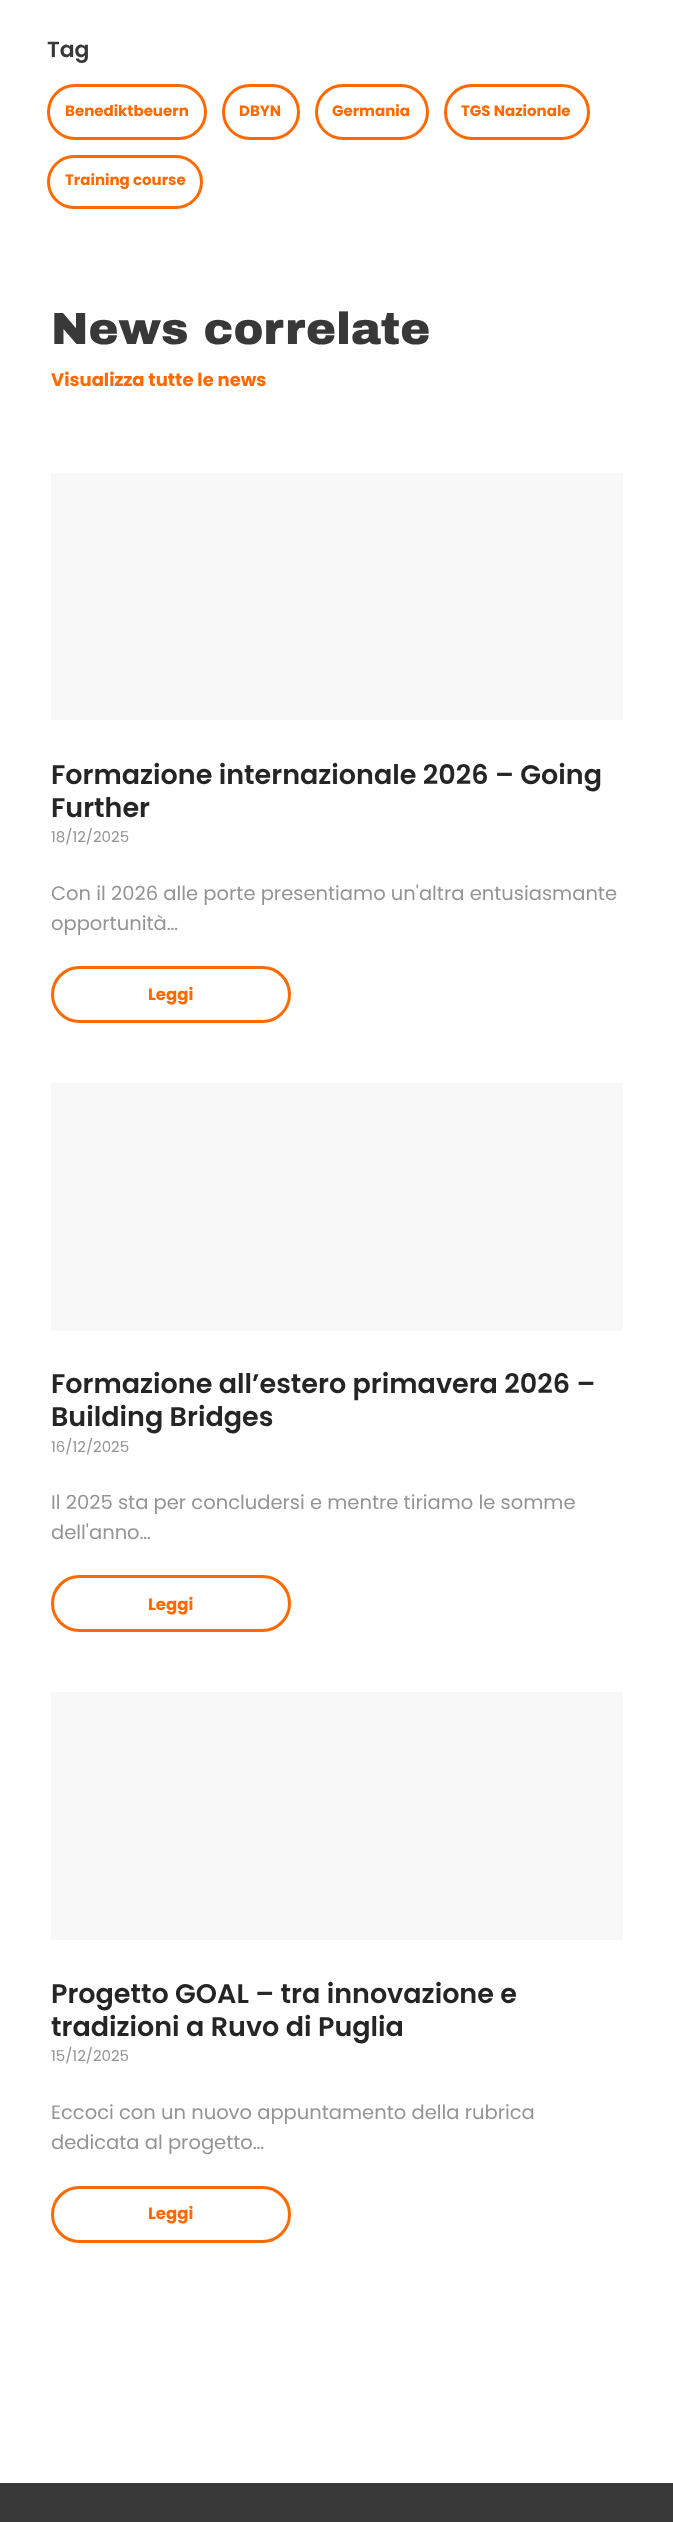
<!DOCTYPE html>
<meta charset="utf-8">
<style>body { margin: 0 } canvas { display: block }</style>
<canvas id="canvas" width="673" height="2522"></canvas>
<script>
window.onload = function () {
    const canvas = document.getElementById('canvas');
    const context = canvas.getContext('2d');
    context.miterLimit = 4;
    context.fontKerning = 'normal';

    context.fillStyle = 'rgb(255, 255, 255)';
    context.fillRect(0, 0, 673, 2522);
    context.beginPath();
    context.roundRect(48.5, 85.5, 157, 53, 26.5);
    context.strokeStyle = 'rgb(255, 105, 0)';
    context.lineWidth = 3;
    context.stroke();
    context.beginPath();
    context.roundRect(223.5, 85.5, 75, 53, 26.5);
    context.stroke();
    context.beginPath();
    context.roundRect(316.5, 85.5, 111, 53, 26.5);
    context.stroke();
    context.beginPath();
    context.roundRect(445.5, 85.5, 143, 53, 26.5);
    context.stroke();
    context.beginPath();
    context.roundRect(48.5, 156.5, 153, 51, 25.5);
    context.stroke();
    context.fillStyle = 'rgb(248, 248, 248)';
    context.fillRect(51, 473, 572, 247);
    context.beginPath();
    context.roundRect(52.5, 967.5, 237, 54, 27);
    context.stroke();
    context.fillRect(51, 1083, 572, 248);
    context.beginPath();
    context.roundRect(52.5, 1576.5, 237, 54, 27);
    context.stroke();
    context.fillRect(51, 1692, 572, 248);
    context.beginPath();
    context.roundRect(52.5, 2187.5, 237, 54, 27);
    context.stroke();
    context.fillStyle = 'rgb(56, 56, 56)';
    context.fillRect(0, 2483, 673, 39);
    context.font = '600 22px Poppins';
    context.fillText('Tag', 47, 57);
    context.font = 'bold 15px Poppins';
    context.fillStyle = 'rgb(255, 105, 0)';
    context.fillText('Benediktbeuern', 65, 116);
    context.fillText('DBYN', 239, 116);
    context.fillText('Germania', 332, 116);
    context.fillText('TGS Nazionale', 461, 116);
    context.fillText('Training course', 65, 185);
    context.font = '900 45px Archivo Black';
    context.fillStyle = 'rgb(56, 56, 56)';
    context.fillText('News correlate', 51, 344);
    context.font = 'bold 18px Poppins';
    context.fillStyle = 'rgb(255, 105, 0)';
    context.fillText('Visualizza tutte le news', 51, 386);
    context.font = '600 27px Poppins';
    context.fillStyle = 'rgb(37, 37, 37)';
    context.fillText('Formazione internazionale 2026 – Going', 51, 784);
    context.fillText('Further', 51, 817);
    context.font = '15px Poppins';
    context.fillStyle = 'rgb(148, 148, 148)';
    context.fillText('18/12/2025', 51, 842);
    context.font = '19.5px Poppins';
    context.fillText('Con il 2026 alle porte presentiamo un\'altra entusiasmante', 51, 900);
    context.fillText('opportunità…', 51, 930);
    context.font = 'bold 16.5px Poppins';
    context.fillStyle = 'rgb(255, 105, 0)';
    context.fillText('Leggi', 148, 1000);
    context.font = '600 27px Poppins';
    context.fillStyle = 'rgb(37, 37, 37)';
    context.fillText('Formazione all’estero primavera 2026 –', 51, 1393);
    context.fillText('Building Bridges', 51, 1426);
    context.font = '15px Poppins';
    context.fillStyle = 'rgb(148, 148, 148)';
    context.fillText('16/12/2025', 51, 1452);
    context.font = '19.5px Poppins';
    context.fillText('Il 2025 sta per concludersi e mentre tiriamo le somme', 51, 1509);
    context.fillText('dell\'anno…', 51, 1539);
    context.font = 'bold 16.5px Poppins';
    context.fillStyle = 'rgb(255, 105, 0)';
    context.fillText('Leggi', 148, 1610);
    context.font = '600 27px Poppins';
    context.fillStyle = 'rgb(37, 37, 37)';
    context.fillText('Progetto GOAL – tra innovazione e', 51, 2003);
    context.fillText('tradizioni a Ruvo di Puglia', 51, 2036);
    context.font = '15px Poppins';
    context.fillStyle = 'rgb(148, 148, 148)';
    context.fillText('15/12/2025', 51, 2061);
    context.font = '19.5px Poppins';
    context.fillText('Eccoci con un nuovo appuntamento della rubrica', 51, 2119);
    context.fillText('dedicata al progetto…', 51, 2149);
    context.font = 'bold 16.5px Poppins';
    context.fillStyle = 'rgb(255, 105, 0)';
    context.fillText('Leggi', 148, 2219);
};
</script>
